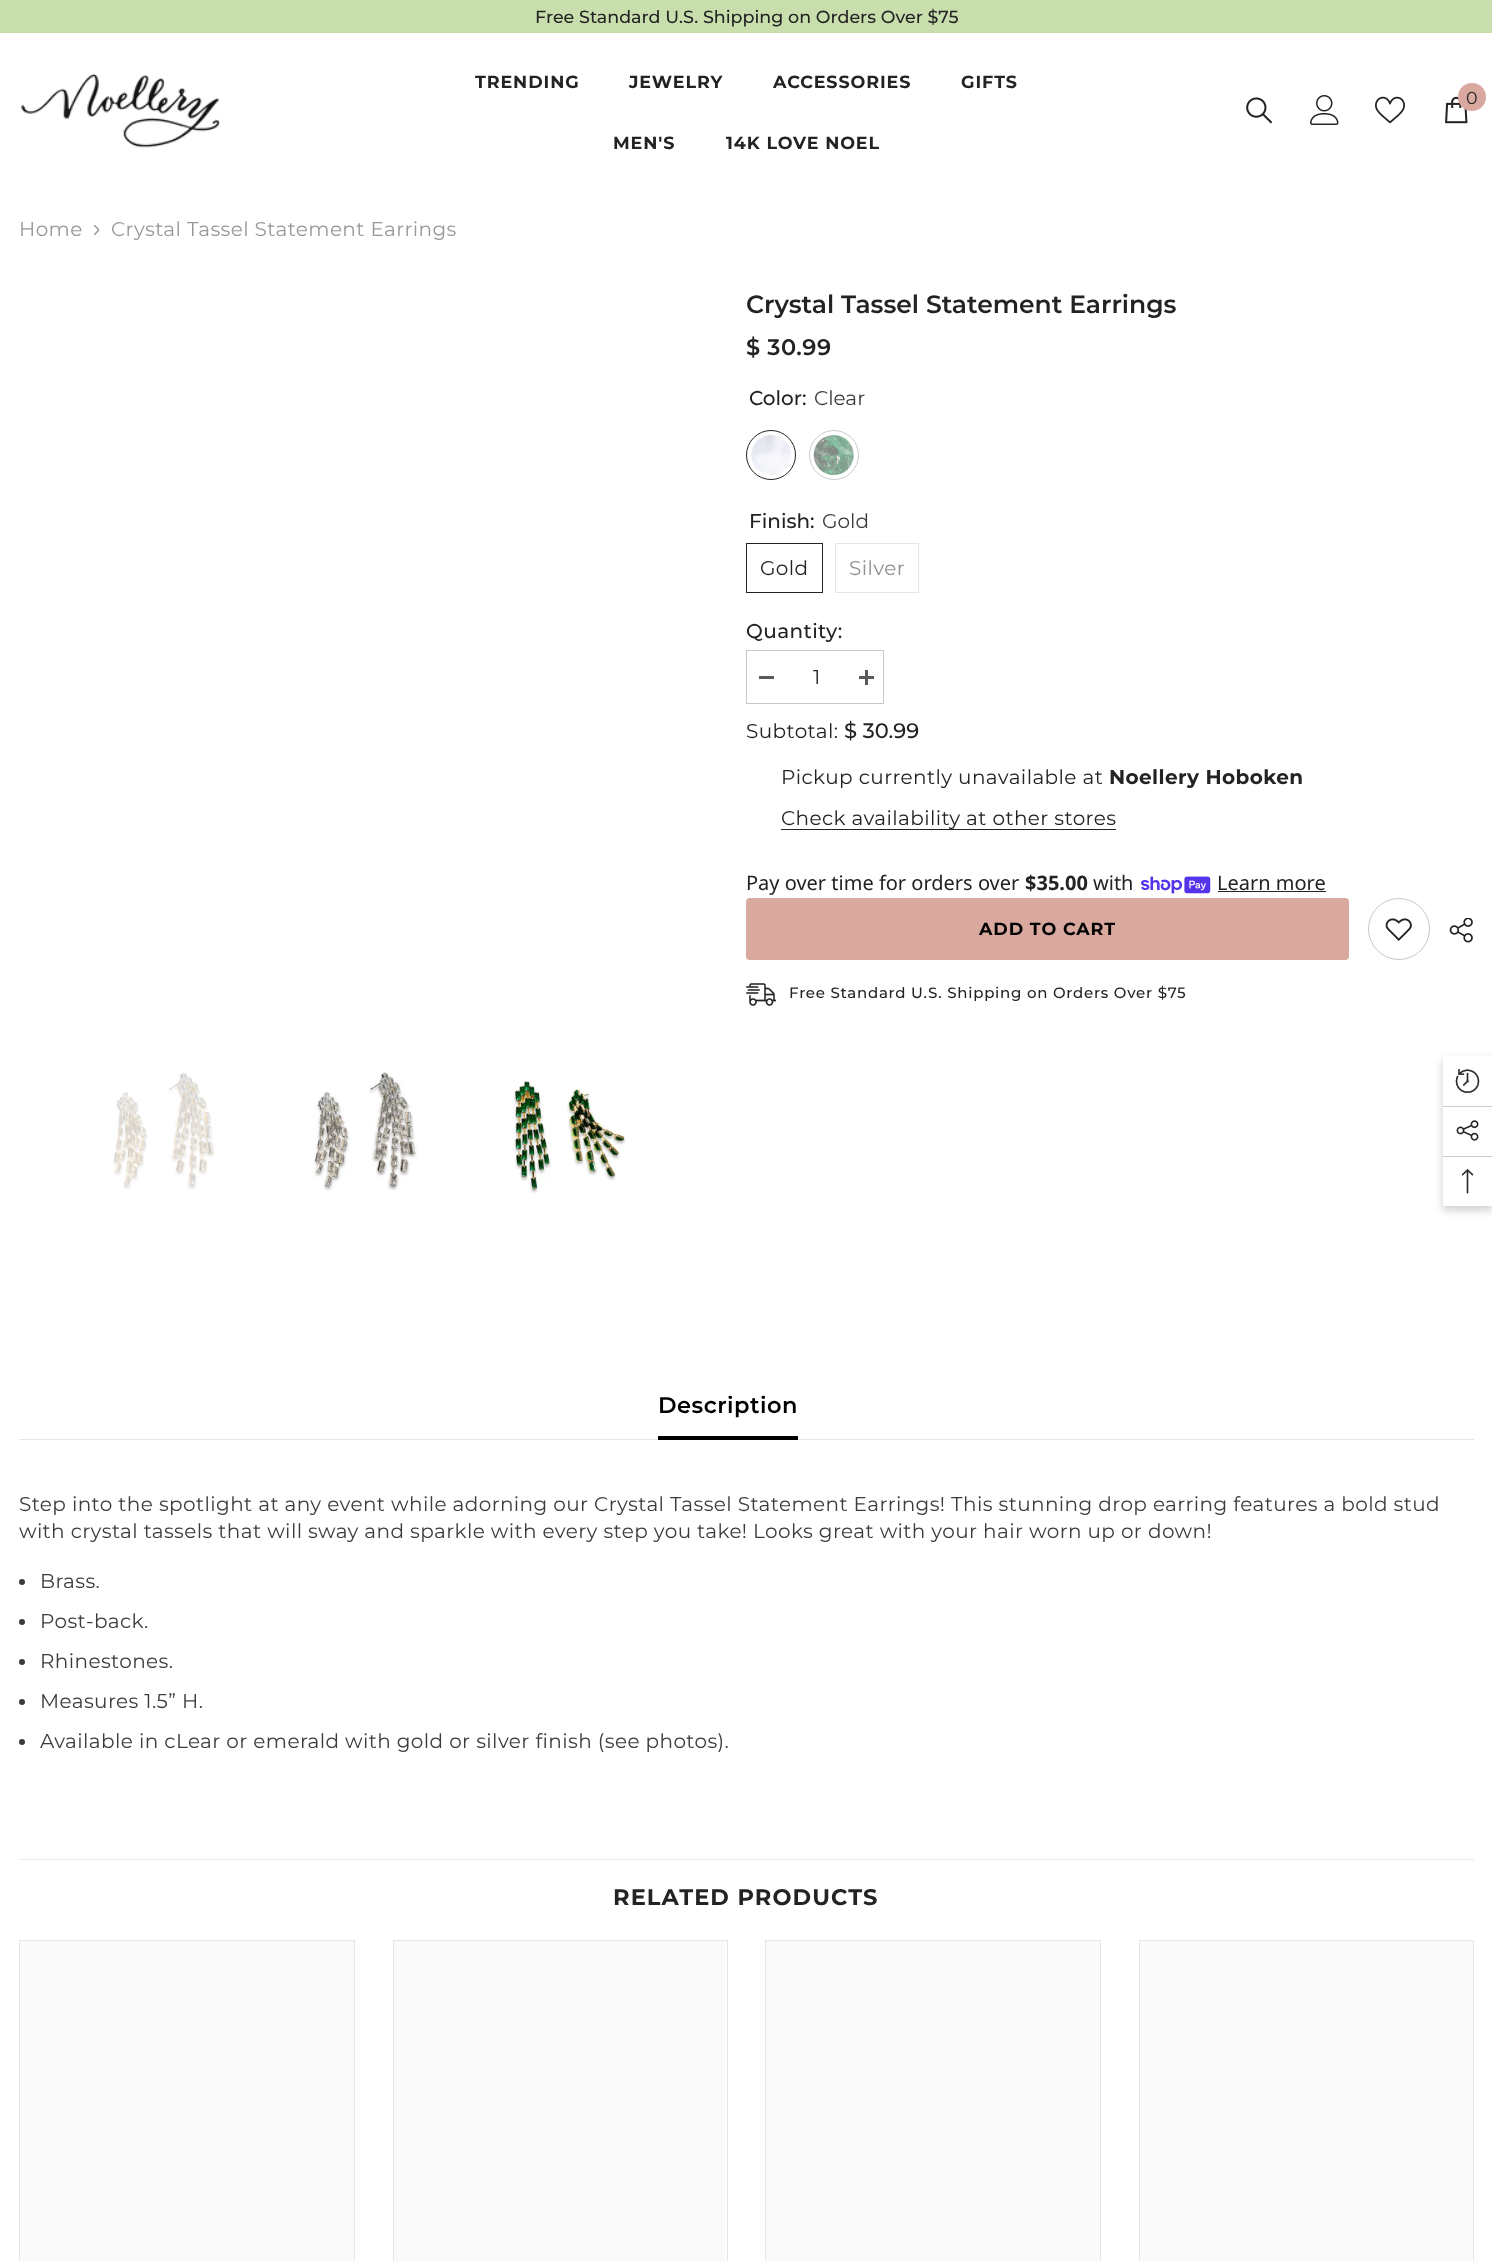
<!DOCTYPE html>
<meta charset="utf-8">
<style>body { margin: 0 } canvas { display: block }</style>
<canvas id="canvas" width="1492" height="2261"></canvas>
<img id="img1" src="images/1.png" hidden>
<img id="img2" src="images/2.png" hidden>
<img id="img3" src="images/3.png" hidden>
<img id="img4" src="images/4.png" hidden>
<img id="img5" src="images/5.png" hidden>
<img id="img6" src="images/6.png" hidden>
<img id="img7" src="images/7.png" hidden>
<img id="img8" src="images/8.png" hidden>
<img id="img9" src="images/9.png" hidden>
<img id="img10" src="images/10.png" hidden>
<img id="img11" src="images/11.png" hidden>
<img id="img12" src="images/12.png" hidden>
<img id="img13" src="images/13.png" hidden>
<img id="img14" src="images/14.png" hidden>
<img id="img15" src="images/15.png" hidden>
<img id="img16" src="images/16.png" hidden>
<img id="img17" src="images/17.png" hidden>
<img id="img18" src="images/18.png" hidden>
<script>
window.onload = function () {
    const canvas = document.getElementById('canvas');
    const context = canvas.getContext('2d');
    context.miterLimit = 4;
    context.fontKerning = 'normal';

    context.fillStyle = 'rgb(255, 255, 255)';
    context.fillRect(0, 0, 1492, 2261);
    context.fillStyle = 'rgb(200, 222, 172)';
    context.fillRect(0, 0, 1492, 33);
    context.drawImage(document.getElementById('img1'), 21, 73, 199, 75);
    context.drawImage(document.getElementById('img2'), 1246, 97, 27, 27);
    context.drawImage(document.getElementById('img3'), 1310, 95, 29, 30);
    context.drawImage(document.getElementById('img4'), 1375, 96, 30, 28);
    context.drawImage(document.getElementById('img5'), 1445, 96, 23, 28);
    context.fillStyle = 'rgb(217, 168, 159)';
    context.beginPath();
    context.arc(1472, 97, 14, 0, 2 * Math.PI);
    context.fill();
    context.drawImage(document.getElementById('img6'), 94, 224, 6, 12);
    context.beginPath();
    context.arc(771, 455, 24.5, 0, 2 * Math.PI);
    context.strokeStyle = 'rgb(35, 35, 35)';
    context.stroke();
    context.drawImage(document.getElementById('img7'), 751, 435, 40, 40);
    context.beginPath();
    context.arc(834, 455, 24.5, 0, 2 * Math.PI);
    context.strokeStyle = 'rgb(203, 203, 203)';
    context.stroke();
    context.drawImage(document.getElementById('img8'), 813, 435, 41, 40);
    context.strokeStyle = 'rgb(35, 35, 35)';
    context.strokeRect(746.5, 543.5, 76, 49);
    context.strokeStyle = 'rgb(229, 229, 229)';
    context.strokeRect(835.5, 543.5, 83, 49);
    context.strokeStyle = 'rgb(199, 199, 199)';
    context.strokeRect(746.5, 650.5, 137, 53);
    context.fillStyle = 'rgb(90, 90, 90)';
    context.fillRect(759, 676, 15, 3);
    context.fillRect(859, 676, 15, 3);
    context.fillRect(865, 670, 3, 15);
    context.fillStyle = 'rgb(35, 35, 35)';
    context.fillRect(781, 829, 335, 1);
    context.drawImage(document.getElementById('img9'), 1141, 876, 70, 18);
    context.fillRect(1218, 891, 108, 1);
    context.fillStyle = 'rgb(217, 168, 159)';
    context.beginPath();
    context.roundRect(746, 898, 603, 62, 4);
    context.fill();
    context.beginPath();
    context.arc(1399, 929, 30.5, 0, 2 * Math.PI);
    context.stroke();
    context.drawImage(document.getElementById('img10'), 1385, 918, 27, 23);
    context.drawImage(document.getElementById('img11'), 1449, 918, 24, 25);
    context.drawImage(document.getElementById('img12'), 746, 983, 30, 23);
    context.drawImage(document.getElementById('img13'), 113, 1072, 102, 118);
    context.drawImage(document.getElementById('img14'), 313, 1072, 104, 119);
    context.drawImage(document.getElementById('img15'), 513, 1081, 113, 113);
    context.fillStyle = 'rgb(230, 230, 230)';
    context.fillRect(19, 1439, 1455, 1);
    context.fillStyle = 'rgb(0, 0, 0)';
    context.fillRect(658, 1436, 140, 4);
    context.fillStyle = 'rgb(60, 60, 60)';
    context.beginPath();
    context.arc(22, 1582, 3, 0, 2 * Math.PI);
    context.fill();
    context.beginPath();
    context.arc(22, 1622, 3, 0, 2 * Math.PI);
    context.fill();
    context.beginPath();
    context.arc(22, 1662, 3, 0, 2 * Math.PI);
    context.fill();
    context.beginPath();
    context.arc(22, 1702, 3, 0, 2 * Math.PI);
    context.fill();
    context.beginPath();
    context.arc(22, 1742, 3, 0, 2 * Math.PI);
    context.fill();
    context.fillStyle = 'rgb(232, 232, 232)';
    context.fillRect(19, 1859, 1455, 1);
    context.strokeStyle = 'rgb(230, 230, 230)';
    context.strokeRect(19.5, 1940.5, 335, 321);
    context.fillStyle = 'rgb(250, 250, 250)';
    context.fillRect(20, 1941, 334, 320);
    context.strokeRect(393.5, 1940.5, 334, 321);
    context.fillRect(394, 1941, 332, 320);
    context.strokeRect(765.5, 1940.5, 335, 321);
    context.fillRect(766, 1941, 334, 320);
    context.strokeRect(1139.5, 1940.5, 334, 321);
    context.fillRect(1140, 1941, 333, 320);
    context.fillStyle = 'rgba(0, 0, 0, 0.2)';
    context.filter = 'blur(4.5px)';
    context.beginPath();
    context.rect(1443, 1060, 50, 150);
    context.fill();
    context.filter = 'none';
    context.fillStyle = 'rgb(255, 255, 255)';
    context.fillRect(1443, 1056, 49, 150);
    context.drawImage(document.getElementById('img16'), 1455, 1069, 25, 24);
    context.fillStyle = 'rgb(204, 204, 204)';
    context.fillRect(1443, 1106, 49, 1);
    context.drawImage(document.getElementById('img17'), 1456, 1120, 23, 21);
    context.fillRect(1443, 1156, 49, 1);
    context.drawImage(document.getElementById('img18'), 1461, 1169, 13, 25);
    context.font = '500 17.5px Montserrat';
    context.fillStyle = 'rgb(35, 35, 35)';
    context.fillText('Free Standard U.S. Shipping on Orders Over $75', 535, 23);
    context.letterSpacing = '0.9px';
    context.font = 'bold 17.5px Montserrat';
    context.fillText('TRENDING', 475, 88);
    context.fillText('JEWELRY', 629, 88);
    context.fillText('ACCESSORIES', 773, 88);
    context.fillText('GIFTS', 961, 88);
    context.fillText('MEN\'S', 613, 149);
    context.fillText('14K LOVE NOEL', 726, 149);
    context.letterSpacing = '0px';
    context.font = '17.5px Montserrat';
    context.fillText('0', 1466, 104);
    context.letterSpacing = '0.4px';
    context.font = '20px Montserrat';
    context.fillStyle = 'rgb(153, 153, 153)';
    context.fillText('Home', 19, 236);
    context.fillText('Crystal Tassel Statement Earrings', 111, 236);
    context.letterSpacing = '0px';
    context.font = '600 25px Montserrat';
    context.fillStyle = 'rgb(35, 35, 35)';
    context.fillText('Crystal Tassel Statement Earrings', 746, 313);
    context.letterSpacing = '0.5px';
    context.font = '600 22.5px Montserrat';
    context.fillText('$ 30.99', 746, 355);
    context.letterSpacing = '0px';
    context.font = '500 20px Montserrat';
    context.fillText('Color:', 749, 405);
    context.font = '20px Montserrat';
    context.fillStyle = 'rgb(60, 60, 60)';
    context.fillText('Clear', 814, 405);
    context.font = '500 20px Montserrat';
    context.fillStyle = 'rgb(35, 35, 35)';
    context.fillText('Finish:', 749, 528);
    context.font = '20px Montserrat';
    context.fillStyle = 'rgb(60, 60, 60)';
    context.fillText('Gold', 822, 528);
    context.letterSpacing = '0.4px';
    context.fillStyle = 'rgb(35, 35, 35)';
    context.fillText('Gold', 760, 575);
    context.fillStyle = 'rgb(145, 145, 145)';
    context.fillText('Silver', 849, 575);
    context.font = '500 20px Montserrat';
    context.fillStyle = 'rgb(35, 35, 35)';
    context.fillText('Quantity:', 746, 638);
    context.font = '20px Montserrat';
    context.fillText('1', 813, 684);
    context.fillText('Subtotal:', 746, 738);
    context.letterSpacing = '0px';
    context.font = '500 21px Montserrat';
    context.fillText('$ 30.99', 844, 738);
    context.letterSpacing = '0.4px';
    context.font = '20px Montserrat';
    context.fillText('Pickup currently unavailable at', 781, 784);
    context.font = 'bold 20px Montserrat';
    context.fillText('Noellery Hoboken', 1109, 784);
    context.font = '20px Montserrat';
    context.fillText('Check availability at other stores', 781, 825);
    context.letterSpacing = '0px';
    context.font = '20px Noto Sans';
    context.fillText('Pay over time for orders over', 746, 890);
    context.font = 'bold 20px Noto Sans';
    context.fillText('$35.00', 1025, 890);
    context.font = '20px Noto Sans';
    context.fillText('with', 1093, 890);
    context.fillText('Learn more', 1217, 890);
    context.letterSpacing = '0.9px';
    context.font = 'bold 17.5px Montserrat';
    context.fillStyle = 'rgb(0, 0, 0)';
    context.fillText('ADD TO CART', 979, 935);
    context.letterSpacing = '0.75px';
    context.font = '500 15px Montserrat';
    context.fillStyle = 'rgb(35, 35, 35)';
    context.fillText('Free Standard U.S. Shipping on Orders Over $75', 789, 998);
    context.letterSpacing = '0.5px';
    context.font = '600 22.5px Montserrat';
    context.fillStyle = 'rgb(0, 0, 0)';
    context.fillText('Description', 658, 1413);
    context.letterSpacing = '0.4px';
    context.font = '20px Montserrat';
    context.fillStyle = 'rgb(60, 60, 60)';
    context.fillText('Step into the spotlight at any event while adorning our Crystal Tassel Statement Earrings! This stunning drop earring features a bold stud', 19, 1511);
    context.fillText('with crystal tassels that will sway and sparkle with every step you take! Looks great with your hair worn up or down!', 19, 1538);
    context.fillText('Brass.', 40, 1588);
    context.fillText('Post-back.', 40, 1628);
    context.fillText('Rhinestones.', 40, 1668);
    context.fillText('Measures 1.5” H.', 40, 1708);
    context.fillText('Available in cLear or emerald with gold or silver finish (see photos).', 40, 1748);
    context.letterSpacing = '1.1px';
    context.font = 'bold 22.5px Montserrat';
    context.fillStyle = 'rgb(35, 35, 35)';
    context.fillText('RELATED PRODUCTS', 613, 1905);
};
</script>
